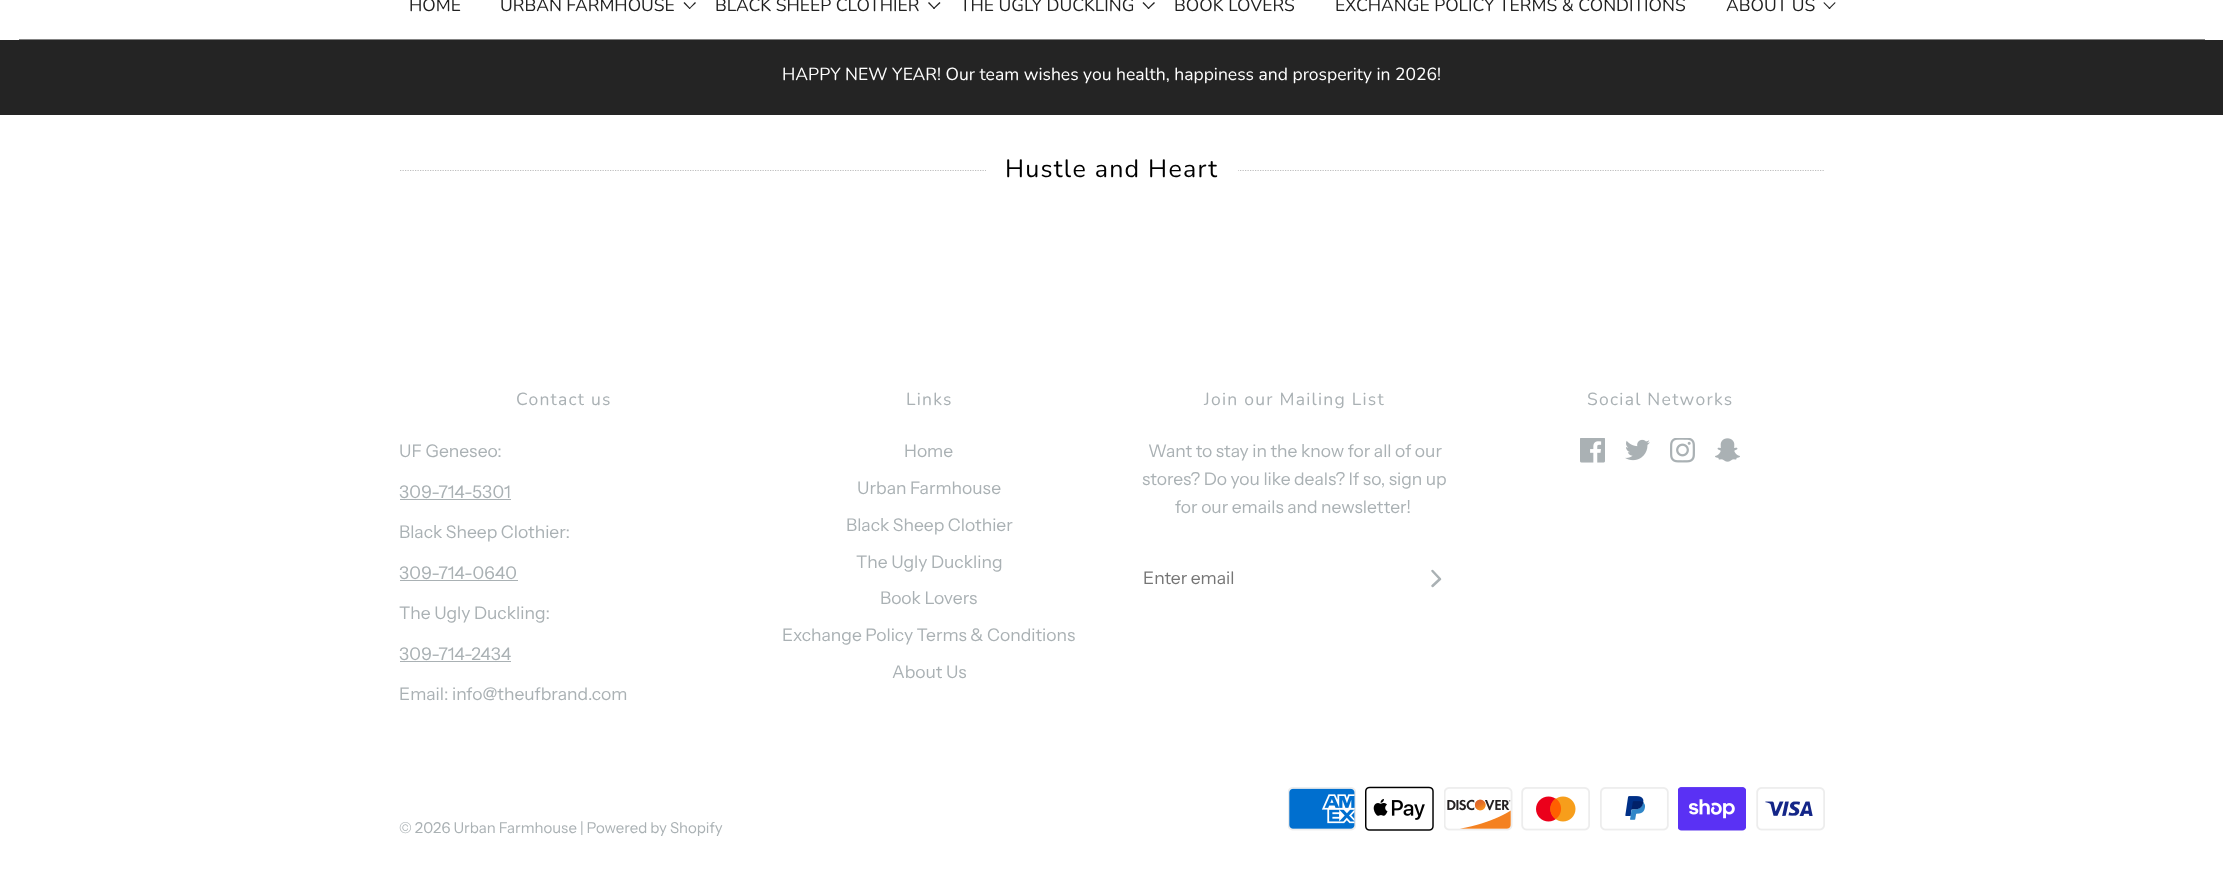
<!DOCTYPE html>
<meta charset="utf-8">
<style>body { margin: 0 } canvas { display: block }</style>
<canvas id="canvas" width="2223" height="878"></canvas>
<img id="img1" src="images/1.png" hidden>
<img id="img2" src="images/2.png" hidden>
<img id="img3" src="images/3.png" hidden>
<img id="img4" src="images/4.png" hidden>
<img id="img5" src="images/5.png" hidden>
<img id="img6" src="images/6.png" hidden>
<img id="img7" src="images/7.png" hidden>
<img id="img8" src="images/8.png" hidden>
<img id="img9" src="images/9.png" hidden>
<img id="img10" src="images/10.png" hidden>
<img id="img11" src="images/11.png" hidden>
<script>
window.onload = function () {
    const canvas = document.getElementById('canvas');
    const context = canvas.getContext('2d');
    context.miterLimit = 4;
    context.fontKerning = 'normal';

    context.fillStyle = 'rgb(255, 255, 255)';
    context.fillRect(0, 0, 2223, 878);
    context.fillStyle = 'rgb(131, 131, 131)';
    context.fillRect(19, 39, 2186, 1);
    context.fillStyle = 'rgb(33, 33, 33)';
    context.beginPath();
    context.moveTo(695, 2);
    context.lineTo(696, 3);
    context.lineTo(689.5, 9);
    context.lineTo(689, 8.5);
    context.closePath();
    context.fill();
    context.beginPath();
    context.moveTo(684.5, 2);
    context.lineTo(690.5, 8.5);
    context.lineTo(689.5, 9);
    context.lineTo(683.5, 3);
    context.closePath();
    context.fill();
    context.beginPath();
    context.moveTo(939.5, 2);
    context.lineTo(940.5, 3);
    context.lineTo(934, 9);
    context.lineTo(933, 8.5);
    context.closePath();
    context.fill();
    context.beginPath();
    context.moveTo(929, 2);
    context.lineTo(935, 8.5);
    context.lineTo(934, 9);
    context.lineTo(928, 3);
    context.closePath();
    context.fill();
    context.beginPath();
    context.moveTo(1154, 2);
    context.lineTo(1155, 3);
    context.lineTo(1148.5, 9);
    context.lineTo(1147.5, 8.5);
    context.closePath();
    context.fill();
    context.beginPath();
    context.moveTo(1143.5, 2);
    context.lineTo(1149.5, 8.5);
    context.lineTo(1148.5, 9);
    context.lineTo(1142.5, 3);
    context.closePath();
    context.fill();
    context.beginPath();
    context.moveTo(1835, 2);
    context.lineTo(1835.5, 3);
    context.lineTo(1829.5, 9);
    context.lineTo(1828.5, 8.5);
    context.closePath();
    context.fill();
    context.beginPath();
    context.moveTo(1824, 2);
    context.lineTo(1830.5, 8.5);
    context.lineTo(1829.5, 9);
    context.lineTo(1823.5, 3);
    context.closePath();
    context.fill();
    context.fillStyle = 'rgb(36, 36, 36)';
    context.fillRect(0, 40, 2223, 75);
    context.beginPath();
    context.moveTo(400, 170.5);
    context.lineTo(1825, 170.5);
    context.strokeStyle = 'rgb(191, 191, 191)';
    context.lineWidth = 1.2;
    context.setLineDash([1.25, 1.25]);
    context.stroke();
    context.fillStyle = 'rgb(255, 255, 255)';
    context.fillRect(986, 169, 252, 3);
    context.fillStyle = 'rgb(170, 177, 180)';
    context.fillRect(400, 499, 111, 1);
    context.fillRect(400, 580, 118, 1);
    context.fillRect(400, 661, 111, 1);
    context.beginPath();
    context.moveTo(1432.5, 586);
    context.lineTo(1440, 579);
    context.lineTo(1432.5, 571);
    context.strokeStyle = 'rgb(170, 177, 180)';
    context.lineWidth = 2.5;
    context.lineCap = 'round';
    context.lineJoin = 'round';
    context.setLineDash([]);
    context.stroke();
    context.drawImage(document.getElementById('img1'), 1580, 438, 25, 25);
    context.drawImage(document.getElementById('img2'), 1625, 439, 25, 22);
    context.drawImage(document.getElementById('img3'), 1670, 438, 25, 25);
    context.drawImage(document.getElementById('img4'), 1715, 438, 25, 24);
    context.drawImage(document.getElementById('img5'), 1288, 787, 68, 44);
    context.drawImage(document.getElementById('img6'), 1365, 786, 69, 45);
    context.drawImage(document.getElementById('img7'), 1444, 787, 69, 44);
    context.drawImage(document.getElementById('img8'), 1521, 787, 69, 44);
    context.drawImage(document.getElementById('img9'), 1600, 787, 69, 44);
    context.drawImage(document.getElementById('img10'), 1678, 787, 68, 44);
    context.drawImage(document.getElementById('img11'), 1756, 787, 69, 44);
    context.font = '17.5px Nunito';
    context.fillStyle = 'rgb(33, 33, 33)';
    context.fillText('HOME', 409, 11);
    context.fillText('URBAN FARMHOUSE', 500, 11);
    context.fillText('BLACK SHEEP CLOTHIER', 715, 11);
    context.fillText('THE UGLY DUCKLING', 960, 11);
    context.fillText('BOOK LOVERS', 1174, 11);
    context.fillText('EXCHANGE POLICY TERMS & CONDITIONS', 1335, 11);
    context.fillText('ABOUT US', 1726, 11);
    context.fillStyle = 'rgb(255, 255, 255)';
    context.fillText('HAPPY NEW YEAR! Our team wishes you health, happiness and prosperity in 2026!', 782, 80);
    context.letterSpacing = '1.25px';
    context.font = '25px Nunito';
    context.fillStyle = 'rgb(0, 0, 0)';
    context.fillText('Hustle and Heart', 1005, 177);
    context.font = '17.5px Nunito';
    context.fillStyle = 'rgb(170, 177, 180)';
    context.fillText('Contact us', 516, 405);
    context.letterSpacing = '0px';
    context.font = '17.5px Instrument Sans';
    context.fillText('UF Geneseo:', 399, 457);
    context.fillText('309-714-5301', 399, 498);
    context.fillText('Black Sheep Clothier:', 399, 538);
    context.fillText('309-714-0640', 399, 579);
    context.fillText('The Ugly Duckling:', 399, 619);
    context.fillText('309-714-2434', 399, 660);
    context.fillText('Email: info@theufbrand.com', 399, 700);
    context.letterSpacing = '1.25px';
    context.font = '17.5px Nunito';
    context.fillText('Links', 906, 405);
    context.letterSpacing = '0px';
    context.font = '17.5px Instrument Sans';
    context.fillText('Home', 904, 457);
    context.fillText('Urban Farmhouse', 857, 494);
    context.fillText('Black Sheep Clothier', 846, 531);
    context.fillText('The Ugly Duckling', 856, 568);
    context.fillText('Book Lovers', 880, 604);
    context.fillText('Exchange Policy Terms & Conditions', 782, 641);
    context.fillText('About Us', 892, 678);
    context.letterSpacing = '1.25px';
    context.font = '17.5px Nunito';
    context.fillText('Join our Mailing List', 1204, 405);
    context.letterSpacing = '0px';
    context.font = '17.5px Instrument Sans';
    context.fillText('Want to stay in the know for all of our', 1148, 457);
    context.fillText('stores? Do you like deals? If so, sign up', 1142, 485);
    context.fillText('for our emails and newsletter!', 1175, 513);
    context.fillStyle = 'rgb(117, 117, 117)';
    context.fillText('Enter email', 1143, 584);
    context.letterSpacing = '1.25px';
    context.font = '17.5px Nunito';
    context.fillStyle = 'rgb(170, 177, 180)';
    context.fillText('Social Networks', 1587, 405);
    context.letterSpacing = '0px';
    context.font = '15px Instrument Sans';
    context.fillText('© 2026 Urban Farmhouse | Powered by Shopify', 399, 833);
};
</script>
